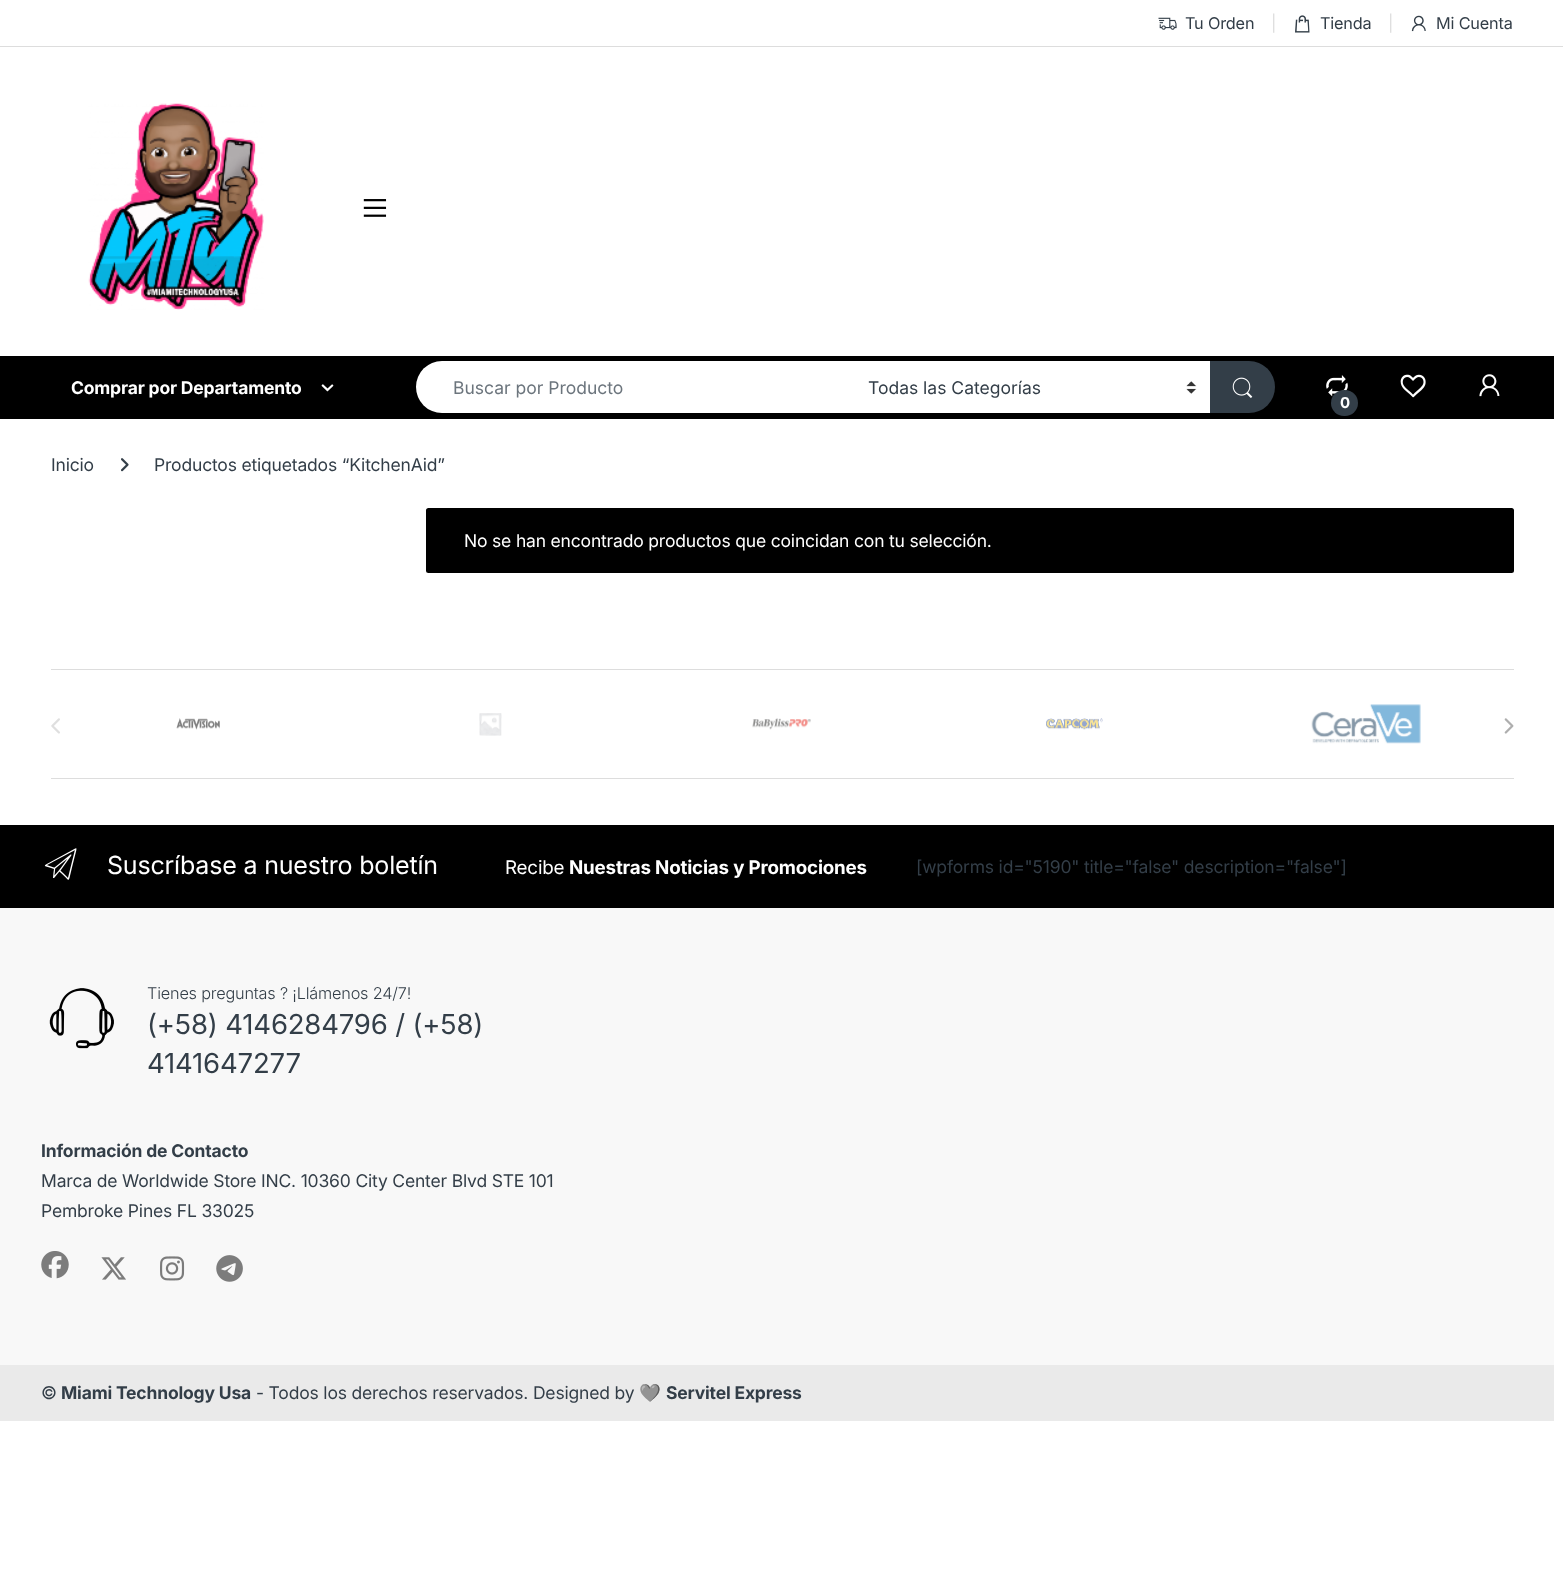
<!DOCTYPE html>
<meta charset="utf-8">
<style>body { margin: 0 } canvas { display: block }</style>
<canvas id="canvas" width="1563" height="1582"></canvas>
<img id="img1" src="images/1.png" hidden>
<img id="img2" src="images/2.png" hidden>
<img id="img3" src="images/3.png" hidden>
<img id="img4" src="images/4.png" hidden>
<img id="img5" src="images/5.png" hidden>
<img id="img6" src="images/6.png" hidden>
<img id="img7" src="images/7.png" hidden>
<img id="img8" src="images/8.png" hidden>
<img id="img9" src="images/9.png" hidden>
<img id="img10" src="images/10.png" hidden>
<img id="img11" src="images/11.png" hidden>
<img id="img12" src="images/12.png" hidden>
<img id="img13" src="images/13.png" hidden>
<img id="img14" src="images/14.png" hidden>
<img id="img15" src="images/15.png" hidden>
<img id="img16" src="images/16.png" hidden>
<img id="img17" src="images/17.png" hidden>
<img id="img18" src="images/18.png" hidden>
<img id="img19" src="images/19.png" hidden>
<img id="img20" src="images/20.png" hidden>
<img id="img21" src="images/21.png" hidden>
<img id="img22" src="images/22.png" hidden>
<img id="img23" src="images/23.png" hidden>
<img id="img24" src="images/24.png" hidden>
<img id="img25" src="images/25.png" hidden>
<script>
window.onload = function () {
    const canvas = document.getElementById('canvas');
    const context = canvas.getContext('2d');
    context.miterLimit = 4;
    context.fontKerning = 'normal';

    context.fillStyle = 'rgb(255, 255, 255)';
    context.fillRect(0, 0, 1563, 1582);
    context.fillStyle = 'rgb(221, 221, 221)';
    context.fillRect(0, 46, 1563, 1);
    context.drawImage(document.getElementById('img1'), 1158, 17, 19, 13);
    context.drawImage(document.getElementById('img2'), 1295, 15, 15, 18);
    context.drawImage(document.getElementById('img3'), 1411, 15, 15, 17);
    context.drawImage(document.getElementById('img4'), 88, 103, 176, 207);
    context.drawImage(document.getElementById('img5'), 363, 199, 24, 18);
    context.fillStyle = 'rgb(0, 0, 0)';
    context.fillRect(0, 356, 1554, 63);
    context.drawImage(document.getElementById('img6'), 321, 384, 13, 8);
    context.fillStyle = 'rgb(255, 255, 255)';
    context.beginPath();
    context.roundRect(416, 361, 438, 52, [26, 0, 0, 26]);
    context.fill();
    context.fillRect(854, 361, 356, 52);
    context.drawImage(document.getElementById('img7'), 1186, 381, 11, 13);
    context.fillStyle = 'rgb(51, 62, 72)';
    context.beginPath();
    context.roundRect(1210, 361, 65, 52, [0, 26, 26, 0]);
    context.fill();
    context.drawImage(document.getElementById('img8'), 1232, 377, 21, 21);
    context.drawImage(document.getElementById('img9'), 1400, 374, 26, 24);
    context.drawImage(document.getElementById('img10'), 1479, 374, 21, 23);
    context.drawImage(document.getElementById('img11'), 1326, 375, 22, 22);
    context.beginPath();
    context.roundRect(1331, 390, 27, 26, 13);
    context.fill();
    context.drawImage(document.getElementById('img12'), 121, 458, 8, 14);
    context.fillStyle = 'rgb(0, 0, 0)';
    context.beginPath();
    context.roundRect(426, 508, 1088, 65, 2.5);
    context.fill();
    context.fillStyle = 'rgba(0, 0, 0, 0.15)';
    context.fillRect(426, 509, 1, 1);
    context.fillStyle = 'rgb(221, 221, 221)';
    context.fillRect(51, 669, 1463, 1);
    context.fillRect(51, 778, 1463, 1);
    context.drawImage(document.getElementById('img13'), 176, 718, 44, 12);
    context.drawImage(document.getElementById('img14'), 479, 713, 23, 23);
    context.drawImage(document.getElementById('img15'), 752, 718, 59, 12);
    context.drawImage(document.getElementById('img16'), 1046, 718, 57, 12);
    context.drawImage(document.getElementById('img17'), 1311, 704, 110, 40);
    context.drawImage(document.getElementById('img18'), 51, 718, 9, 16);
    context.drawImage(document.getElementById('img19'), 1504, 718, 10, 16);
    context.fillStyle = 'rgb(0, 0, 0)';
    context.fillRect(0, 825, 1554, 83);
    context.drawImage(document.getElementById('img20'), 44, 848, 33, 32);
    context.fillStyle = 'rgb(248, 248, 248)';
    context.fillRect(0, 908, 1554, 457);
    context.drawImage(document.getElementById('img21'), 49, 988, 65, 61);
    context.drawImage(document.getElementById('img22'), 41, 1251, 28, 28);
    context.drawImage(document.getElementById('img23'), 101, 1257, 25, 23);
    context.drawImage(document.getElementById('img24'), 160, 1256, 25, 25);
    context.drawImage(document.getElementById('img25'), 216, 1255, 27, 27);
    context.fillStyle = 'rgb(234, 234, 234)';
    context.fillRect(0, 1365, 1554, 56);
    context.letterSpacing = '-0.18px';
    context.font = '16.25px Inter';
    context.fillStyle = 'rgb(51, 62, 72)';
    context.fillText('Tu Orden', 1185, 29);
    context.fillStyle = 'rgb(221, 221, 221)';
    context.fillText('|', 1271, 29);
    context.fillStyle = 'rgb(51, 62, 72)';
    context.fillText('Tienda', 1320, 29);
    context.fillStyle = 'rgb(221, 221, 221)';
    context.fillText('|', 1388, 29);
    context.fillStyle = 'rgb(51, 62, 72)';
    context.fillText('Mi Cuenta', 1436, 29);
    context.font = 'bold 17.5px Inter';
    context.fillStyle = 'rgb(255, 255, 255)';
    context.fillText('Comprar por Departamento', 71, 394);
    context.letterSpacing = '0px';
    context.font = '17.5px Inter';
    context.fillStyle = 'rgb(108, 117, 125)';
    context.fillText('Buscar por Producto', 453, 394);
    context.fillStyle = 'rgb(51, 62, 72)';
    context.fillText('Todas las Categorías', 868, 394);
    context.letterSpacing = '-0.18px';
    context.font = 'bold 15px Inter';
    context.fillStyle = 'rgb(255, 255, 255)';
    context.fillText('0', 1340, 408);
    context.font = '17.5px Inter';
    context.fillStyle = 'rgb(51, 62, 72)';
    context.fillText('Inicio', 51, 471);
    context.fillText('Productos etiquetados “KitchenAid”', 154, 471);
    context.fillStyle = 'rgb(255, 255, 255)';
    context.fillText('No se han encontrado productos que coincidan con tu selección.', 464, 547);
    context.font = '25px Inter';
    context.fillText('Suscríbase a nuestro boletín', 107, 874);
    context.font = '18.75px Inter';
    context.fillText('Recibe', 505, 874);
    context.font = 'bold 18.75px Inter';
    context.fillText('Nuestras Noticias y Promociones', 569, 874);
    context.font = '17.5px Inter';
    context.fillStyle = 'rgb(51, 62, 72)';
    context.fillText('[wpforms id="5190" title="false" description="false"]', 916, 873);
    context.font = '300 16.25px Inter';
    context.fillText('Tienes preguntas ? ¡Llámenos 24/7!', 147, 999);
    context.font = '27.5px Inter';
    context.fillText('(+58) 4146284796 / (+58)', 147, 1034);
    context.fillText('4141647277', 147, 1073);
    context.font = 'bold 17.5px Inter';
    context.fillText('Información de Contacto', 41, 1157);
    context.font = '17.5px Inter';
    context.fillText('Marca de Worldwide Store INC. 10360 City Center Blvd STE 101', 41, 1187);
    context.fillText('Pembroke Pines FL 33025', 41, 1217);
    context.fillText('©', 41, 1399);
    context.font = 'bold 17.5px Inter';
    context.fillText('Miami Technology Usa', 61, 1399);
    context.font = '17.5px Inter';
    context.fillText('- Todos los derechos reservados. Designed by', 256, 1399);
    context.font = '17.5px Noto Color Emoji';
    context.fillText('🩶', 639, 1399);
    context.font = 'bold 17.5px Inter';
    context.fillText('Servitel Express', 666, 1399);
};
</script>
